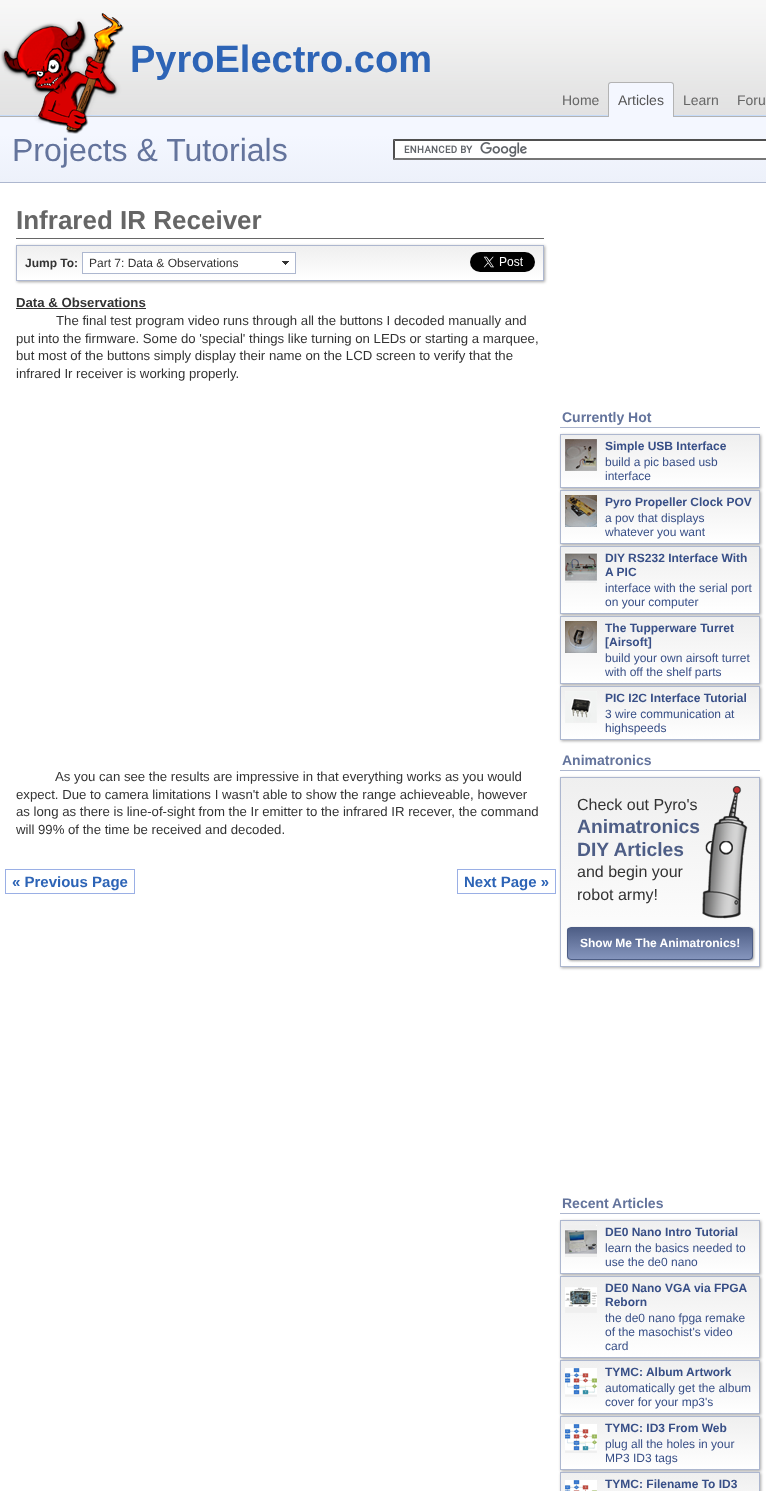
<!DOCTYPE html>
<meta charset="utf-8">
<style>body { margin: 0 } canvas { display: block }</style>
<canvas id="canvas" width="766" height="1491"></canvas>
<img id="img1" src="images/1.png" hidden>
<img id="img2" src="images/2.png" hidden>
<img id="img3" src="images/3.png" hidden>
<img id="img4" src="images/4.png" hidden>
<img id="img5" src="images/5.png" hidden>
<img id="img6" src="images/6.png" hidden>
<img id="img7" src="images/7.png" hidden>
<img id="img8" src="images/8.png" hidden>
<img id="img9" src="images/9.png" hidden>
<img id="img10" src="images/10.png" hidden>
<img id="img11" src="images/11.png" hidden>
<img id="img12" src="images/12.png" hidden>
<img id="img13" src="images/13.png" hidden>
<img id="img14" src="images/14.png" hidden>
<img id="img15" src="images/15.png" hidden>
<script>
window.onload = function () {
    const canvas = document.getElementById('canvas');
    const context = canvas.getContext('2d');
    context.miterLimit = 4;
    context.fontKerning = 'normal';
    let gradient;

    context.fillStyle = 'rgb(255, 255, 255)';
    context.fillRect(0, 0, 766, 1491);
    context.drawImage(document.getElementById('img1'), 0, 0, 766, 134);
    context.drawImage(document.getElementById('img2'), 0, 13, 124, 121);
    context.fillStyle = 'rgb(244, 247, 255)';
    context.beginPath();
    context.roundRect(608, 82, 66, 35, [3, 3, 0, 0]);
    context.fill();
    context.fillStyle = 'rgb(179, 179, 179)';
    context.beginPath();
    context.moveTo(611, 82);
    context.lineTo(671, 82);
    context.bezierCurveTo(673, 82, 674, 83, 674, 85);
    context.lineTo(674, 117);
    context.lineTo(608, 117);
    context.lineTo(608, 85);
    context.bezierCurveTo(608, 83, 609, 82, 611, 82);
    context.closePath();
    context.moveTo(611, 83);
    context.lineTo(671, 83);
    context.bezierCurveTo(672, 83, 673, 84, 673, 85);
    context.lineTo(673, 117);
    context.lineTo(609, 117);
    context.lineTo(609, 85);
    context.bezierCurveTo(609, 84, 610, 83, 611, 83);
    context.closePath();
    context.fill('evenodd');
    gradient = context.createLinearGradient(0, 134, 0, 182);
    gradient.addColorStop(0, 'rgb(244, 247, 255)');
    gradient.addColorStop(1, 'rgb(237, 241, 250)');
    context.fillStyle = gradient;
    context.fillRect(0, 134, 766, 48);
    context.fillStyle = 'rgb(173, 183, 207)';
    context.fillRect(0, 182, 766, 1);
    context.fillStyle = 'rgb(255, 255, 255)';
    context.fillRect(393, 139, 373, 21);
    context.drawImage(document.getElementById('img3'), 404, 142, 123, 15);
    context.fillStyle = 'rgb(79, 79, 79)';
    context.beginPath();
    context.moveTo(393, 139);
    context.lineTo(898, 139);
    context.lineTo(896, 141);
    context.lineTo(395, 141);
    context.closePath();
    context.fill();
    context.fillStyle = 'rgb(118, 118, 118)';
    context.beginPath();
    context.moveTo(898, 160);
    context.lineTo(393, 160);
    context.lineTo(395, 158);
    context.lineTo(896, 158);
    context.closePath();
    context.fill();
    context.fillStyle = 'rgb(79, 79, 79)';
    context.beginPath();
    context.moveTo(393, 160);
    context.lineTo(393, 139);
    context.lineTo(395, 141);
    context.lineTo(395, 158);
    context.closePath();
    context.fill();
    context.fillStyle = 'rgb(102, 102, 102)';
    context.fillRect(16, 238, 528, 1);
    context.fillStyle = 'rgba(0, 0, 0, 0.35)';
    context.filter = 'blur(1.5px)';
    context.beginPath();
    context.rect(17, 246, 528, 36);
    context.fill();
    context.filter = 'none';
    gradient = context.createLinearGradient(17, 246, 17, 280);
    gradient.addColorStop(0, 'rgb(239, 239, 239)');
    gradient.addColorStop(1, 'rgb(255, 255, 255)');
    context.fillStyle = gradient;
    context.fillRect(17, 246, 526, 34);
    context.strokeStyle = 'rgb(173, 183, 207)';
    context.strokeRect(16.5, 245.5, 527, 35);
    context.strokeRect(82.5, 252.5, 213, 21);
    context.fillStyle = 'rgb(255, 255, 255)';
    context.fillRect(83, 253, 212, 20);
    context.drawImage(document.getElementById('img4'), 282, 261, 7, 4);
    context.drawImage(document.getElementById('img5'), 470, 252, 65, 20);
    context.fillStyle = 'rgb(51, 51, 51)';
    context.fillRect(16, 308, 130, 1);
    context.strokeStyle = 'rgb(154, 175, 229)';
    context.strokeRect(5.5, 869.5, 129, 24);
    context.strokeRect(457.5, 869.5, 98, 24);
    context.fillStyle = 'rgb(173, 183, 207)';
    context.fillRect(560, 427, 200, 1);
    context.fillStyle = 'rgba(0, 0, 0, 0.35)';
    context.filter = 'blur(1.5px)';
    context.beginPath();
    context.rect(561, 435, 200, 54);
    context.fill();
    context.filter = 'none';
    gradient = context.createLinearGradient(561, 435, 561, 487);
    gradient.addColorStop(0, 'rgb(239, 239, 239)');
    gradient.addColorStop(1, 'rgb(255, 255, 255)');
    context.fillStyle = gradient;
    context.fillRect(561, 435, 198, 52);
    context.strokeStyle = 'rgb(173, 183, 207)';
    context.strokeRect(560.5, 434.5, 199, 53);
    context.drawImage(document.getElementById('img6'), 565, 439, 32, 32);
    context.fillStyle = 'rgba(0, 0, 0, 0.35)';
    context.filter = 'blur(1.5px)';
    context.beginPath();
    context.rect(561, 491, 200, 54);
    context.fill();
    context.filter = 'none';
    gradient = context.createLinearGradient(561, 491, 561, 543);
    gradient.addColorStop(0, 'rgb(239, 239, 239)');
    gradient.addColorStop(1, 'rgb(255, 255, 255)');
    context.fillStyle = gradient;
    context.fillRect(561, 491, 198, 52);
    context.strokeRect(560.5, 490.5, 199, 53);
    context.drawImage(document.getElementById('img7'), 565, 495, 32, 32);
    context.fillStyle = 'rgba(0, 0, 0, 0.35)';
    context.filter = 'blur(1.5px)';
    context.beginPath();
    context.rect(561, 547, 200, 68);
    context.fill();
    context.filter = 'none';
    gradient = context.createLinearGradient(561, 547, 561, 613);
    gradient.addColorStop(0, 'rgb(239, 239, 239)');
    gradient.addColorStop(1, 'rgb(255, 255, 255)');
    context.fillStyle = gradient;
    context.fillRect(561, 547, 198, 66);
    context.strokeRect(560.5, 546.5, 199, 67);
    context.drawImage(document.getElementById('img8'), 565, 552, 32, 31);
    context.fillStyle = 'rgba(0, 0, 0, 0.35)';
    context.filter = 'blur(1.5px)';
    context.beginPath();
    context.rect(561, 617, 200, 68);
    context.fill();
    context.filter = 'none';
    gradient = context.createLinearGradient(561, 617, 561, 683);
    gradient.addColorStop(0, 'rgb(239, 239, 239)');
    gradient.addColorStop(1, 'rgb(255, 255, 255)');
    context.fillStyle = gradient;
    context.fillRect(561, 617, 198, 66);
    context.strokeRect(560.5, 616.5, 199, 67);
    context.drawImage(document.getElementById('img9'), 565, 621, 32, 32);
    context.fillStyle = 'rgba(0, 0, 0, 0.35)';
    context.filter = 'blur(1.5px)';
    context.beginPath();
    context.rect(561, 687, 200, 54);
    context.fill();
    context.filter = 'none';
    gradient = context.createLinearGradient(561, 687, 561, 739);
    gradient.addColorStop(0, 'rgb(239, 239, 239)');
    gradient.addColorStop(1, 'rgb(255, 255, 255)');
    context.fillStyle = gradient;
    context.fillRect(561, 687, 198, 52);
    context.strokeRect(560.5, 686.5, 199, 53);
    context.drawImage(document.getElementById('img10'), 565, 691, 32, 32);
    context.fillStyle = 'rgb(173, 183, 207)';
    context.fillRect(560, 770, 200, 1);
    context.fillStyle = 'rgba(0, 0, 0, 0.35)';
    context.filter = 'blur(1.5px)';
    context.beginPath();
    context.rect(561, 778, 200, 190);
    context.fill();
    context.filter = 'none';
    gradient = context.createLinearGradient(561, 778, 561, 966);
    gradient.addColorStop(0, 'rgb(239, 239, 239)');
    gradient.addColorStop(1, 'rgb(255, 255, 255)');
    context.fillStyle = gradient;
    context.fillRect(561, 778, 198, 188);
    context.strokeRect(560.5, 777.5, 199, 189);
    context.drawImage(document.getElementById('img11'), 702, 786, 46, 133);
    context.fillStyle = 'rgba(0, 0, 0, 0.35)';
    context.filter = 'blur(1px)';
    context.beginPath();
    context.roundRect(568, 928, 186, 33, 4);
    context.fill();
    context.filter = 'none';
    context.save();
    context.beginPath();
    context.roundRect(567, 927, 186, 33, 4);
    context.clip();
    gradient = context.createLinearGradient(568, 928, 568, 959);
    gradient.addColorStop(0, 'rgb(78, 94, 134)');
    gradient.addColorStop(1, 'rgb(133, 149, 189)');
    context.fillStyle = gradient;
    context.fillRect(567, 928, 186, 31);
    context.restore();
    context.beginPath();
    context.roundRect(567.5, 927.5, 185, 32, 3.5);
    context.strokeStyle = 'rgb(77, 93, 133)';
    context.stroke();
    context.fillStyle = 'rgb(173, 183, 207)';
    context.fillRect(560, 1213, 200, 1);
    context.fillStyle = 'rgba(0, 0, 0, 0.35)';
    context.filter = 'blur(1.5px)';
    context.beginPath();
    context.rect(561, 1221, 200, 54);
    context.fill();
    context.filter = 'none';
    gradient = context.createLinearGradient(561, 1221, 561, 1273);
    gradient.addColorStop(0, 'rgb(239, 239, 239)');
    gradient.addColorStop(1, 'rgb(255, 255, 255)');
    context.fillStyle = gradient;
    context.fillRect(561, 1221, 198, 52);
    context.strokeStyle = 'rgb(173, 183, 207)';
    context.strokeRect(560.5, 1220.5, 199, 53);
    context.drawImage(document.getElementById('img12'), 565, 1225, 32, 32);
    context.fillStyle = 'rgba(0, 0, 0, 0.35)';
    context.filter = 'blur(1.5px)';
    context.beginPath();
    context.rect(561, 1277, 200, 82);
    context.fill();
    context.filter = 'none';
    gradient = context.createLinearGradient(561, 1277, 561, 1357);
    gradient.addColorStop(0, 'rgb(239, 239, 239)');
    gradient.addColorStop(1, 'rgb(255, 255, 255)');
    context.fillStyle = gradient;
    context.fillRect(561, 1277, 198, 80);
    context.strokeRect(560.5, 1276.5, 199, 81);
    context.drawImage(document.getElementById('img13'), 565, 1287, 32, 26);
    context.fillStyle = 'rgba(0, 0, 0, 0.35)';
    context.filter = 'blur(1.5px)';
    context.beginPath();
    context.rect(561, 1361, 200, 54);
    context.fill();
    context.filter = 'none';
    gradient = context.createLinearGradient(561, 1361, 561, 1413);
    gradient.addColorStop(0, 'rgb(239, 239, 239)');
    gradient.addColorStop(1, 'rgb(255, 255, 255)');
    context.fillStyle = gradient;
    context.fillRect(561, 1361, 198, 52);
    context.strokeRect(560.5, 1360.5, 199, 53);
    context.drawImage(document.getElementById('img14'), 565, 1368, 32, 29);
    context.fillStyle = 'rgba(0, 0, 0, 0.35)';
    context.filter = 'blur(1.5px)';
    context.beginPath();
    context.rect(561, 1417, 200, 54);
    context.fill();
    context.filter = 'none';
    gradient = context.createLinearGradient(561, 1417, 561, 1469);
    gradient.addColorStop(0, 'rgb(239, 239, 239)');
    gradient.addColorStop(1, 'rgb(255, 255, 255)');
    context.fillStyle = gradient;
    context.fillRect(561, 1417, 198, 52);
    context.strokeRect(560.5, 1416.5, 199, 53);
    context.drawImage(document.getElementById('img14'), 565, 1424, 32, 29);
    context.fillStyle = 'rgba(0, 0, 0, 0.35)';
    context.filter = 'blur(1.5px)';
    context.beginPath();
    context.rect(561, 1473, 200, 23);
    context.fill();
    context.filter = 'none';
    gradient = context.createLinearGradient(561, 1473, 561, 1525);
    gradient.addColorStop(0, 'rgb(239, 239, 239)');
    gradient.addColorStop(1, 'rgb(255, 255, 255)');
    context.fillStyle = gradient;
    context.fillRect(561, 1473, 198, 18);
    context.strokeRect(560.5, 1472.5, 199, 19);
    context.drawImage(document.getElementById('img15'), 565, 1480, 32, 11);
    context.font = 'bold 38px Liberation Sans';
    context.fillStyle = 'rgb(45, 100, 182)';
    context.fillText('PyroElectro.com', 130, 72);
    context.font = '14px Liberation Sans';
    context.fillStyle = 'rgb(102, 102, 102)';
    context.fillText('Home', 562, 105);
    context.fillStyle = 'rgb(85, 85, 85)';
    context.fillText('Articles', 618, 105);
    context.fillStyle = 'rgb(102, 102, 102)';
    context.fillText('Learn', 683, 105);
    context.fillText('Foru', 737, 105);
    context.font = '32px Liberation Sans';
    context.fillStyle = 'rgb(100, 116, 156)';
    context.fillText('Projects & Tutorials', 12, 161);
    context.font = 'bold 26px Liberation Sans';
    context.fillStyle = 'rgb(102, 102, 102)';
    context.fillText('Infrared IR Receiver', 16, 229);
    context.font = 'bold 12px Liberation Sans';
    context.fillStyle = 'rgb(51, 51, 51)';
    context.fillText('Jump To:', 25, 267);
    context.font = '12px Liberation Sans';
    context.fillText('Part 7: Data & Observations', 89, 267);
    context.font = 'bold 13.2px Liberation Sans';
    context.fillText('Data & Observations', 16, 307);
    context.font = '13.2px Liberation Sans';
    context.fillText('The final test program video runs through all the buttons I decoded manually and', 56, 325);
    context.fillText('put into the firmware. Some do \'special\' things like turning on LEDs or starting a marquee,', 16, 343);
    context.fillText('but most of the buttons simply display their name on the LCD screen to verify that the', 16, 360);
    context.fillText('infrared Ir receiver is working properly.', 16, 378);
    context.fillText('As you can see the results are impressive in that everything works as you would', 55, 781);
    context.fillText('expect. Due to camera limitations I wasn\'t able to show the range achieveable, however', 16, 799);
    context.fillText('as long as there is line-of-sight from the Ir emitter to the infrared IR recever, the command', 16, 816);
    context.fillText('will 99% of the time be received and decoded.', 16, 834);
    context.font = 'bold 15px Liberation Sans';
    context.fillStyle = 'rgb(45, 100, 182)';
    context.fillText('« Previous Page', 12, 887);
    context.fillText('Next Page »', 464, 887);
    context.font = 'bold 14px Liberation Sans';
    context.fillStyle = 'rgb(100, 116, 156)';
    context.fillText('Currently Hot', 562, 422);
    context.font = 'bold 12px Liberation Sans';
    context.fillStyle = 'rgb(56, 79, 135)';
    context.fillText('Simple USB Interface', 605, 450);
    context.font = '12px Liberation Sans';
    context.fillText('build a pic based usb', 605, 466);
    context.fillText('interface', 605, 480);
    context.font = 'bold 12px Liberation Sans';
    context.fillText('Pyro Propeller Clock POV', 605, 506);
    context.font = '12px Liberation Sans';
    context.fillText('a pov that displays', 605, 522);
    context.fillText('whatever you want', 605, 536);
    context.font = 'bold 12px Liberation Sans';
    context.fillText('DIY RS232 Interface With', 605, 562);
    context.fillText('A PIC', 605, 576);
    context.font = '12px Liberation Sans';
    context.fillText('interface with the serial port', 605, 592);
    context.fillText('on your computer', 605, 606);
    context.font = 'bold 12px Liberation Sans';
    context.fillText('The Tupperware Turret', 605, 632);
    context.fillText('[Airsoft]', 605, 646);
    context.font = '12px Liberation Sans';
    context.fillText('build your own airsoft turret', 605, 662);
    context.fillText('with off the shelf parts', 605, 676);
    context.font = 'bold 12px Liberation Sans';
    context.fillText('PIC I2C Interface Tutorial', 605, 702);
    context.font = '12px Liberation Sans';
    context.fillText('3 wire communication at', 605, 718);
    context.fillText('highspeeds', 605, 732);
    context.font = 'bold 14px Liberation Sans';
    context.fillStyle = 'rgb(100, 116, 156)';
    context.fillText('Animatronics', 562, 765);
    context.font = '16px Liberation Sans';
    context.fillStyle = 'rgb(51, 51, 51)';
    context.fillText('Check out Pyro\'s', 577, 810);
    context.font = 'bold 19.25px Liberation Sans';
    context.fillStyle = 'rgb(78, 94, 134)';
    context.fillText('Animatronics', 577, 833);
    context.fillText('DIY Articles', 577, 856);
    context.font = '16px Liberation Sans';
    context.fillStyle = 'rgb(51, 51, 51)';
    context.fillText('and begin your', 577, 877);
    context.fillText('robot army!', 577, 900);
    context.font = 'bold 12px Liberation Sans';
    context.fillStyle = 'rgb(255, 255, 255)';
    context.fillText('Show Me The Animatronics!', 580, 947);
    context.font = 'bold 14px Liberation Sans';
    context.fillStyle = 'rgb(100, 116, 156)';
    context.fillText('Recent Articles', 562, 1208);
    context.font = 'bold 12px Liberation Sans';
    context.fillStyle = 'rgb(56, 79, 135)';
    context.fillText('DE0 Nano Intro Tutorial', 605, 1236);
    context.font = '12px Liberation Sans';
    context.fillText('learn the basics needed to', 605, 1252);
    context.fillText('use the de0 nano', 605, 1266);
    context.font = 'bold 12px Liberation Sans';
    context.fillText('DE0 Nano VGA via FPGA', 605, 1292);
    context.fillText('Reborn', 605, 1306);
    context.font = '12px Liberation Sans';
    context.fillText('the de0 nano fpga remake', 605, 1322);
    context.fillText('of the masochist\'s video', 605, 1336);
    context.fillText('card', 605, 1350);
    context.font = 'bold 12px Liberation Sans';
    context.fillText('TYMC: Album Artwork', 605, 1376);
    context.font = '12px Liberation Sans';
    context.fillText('automatically get the album', 605, 1392);
    context.fillText('cover for your mp3\'s', 605, 1406);
    context.font = 'bold 12px Liberation Sans';
    context.fillText('TYMC: ID3 From Web', 605, 1432);
    context.font = '12px Liberation Sans';
    context.fillText('plug all the holes in your', 605, 1448);
    context.fillText('MP3 ID3 tags', 605, 1462);
    context.font = 'bold 12px Liberation Sans';
    context.fillText('TYMC: Filename To ID3', 605, 1488);
};
</script>
